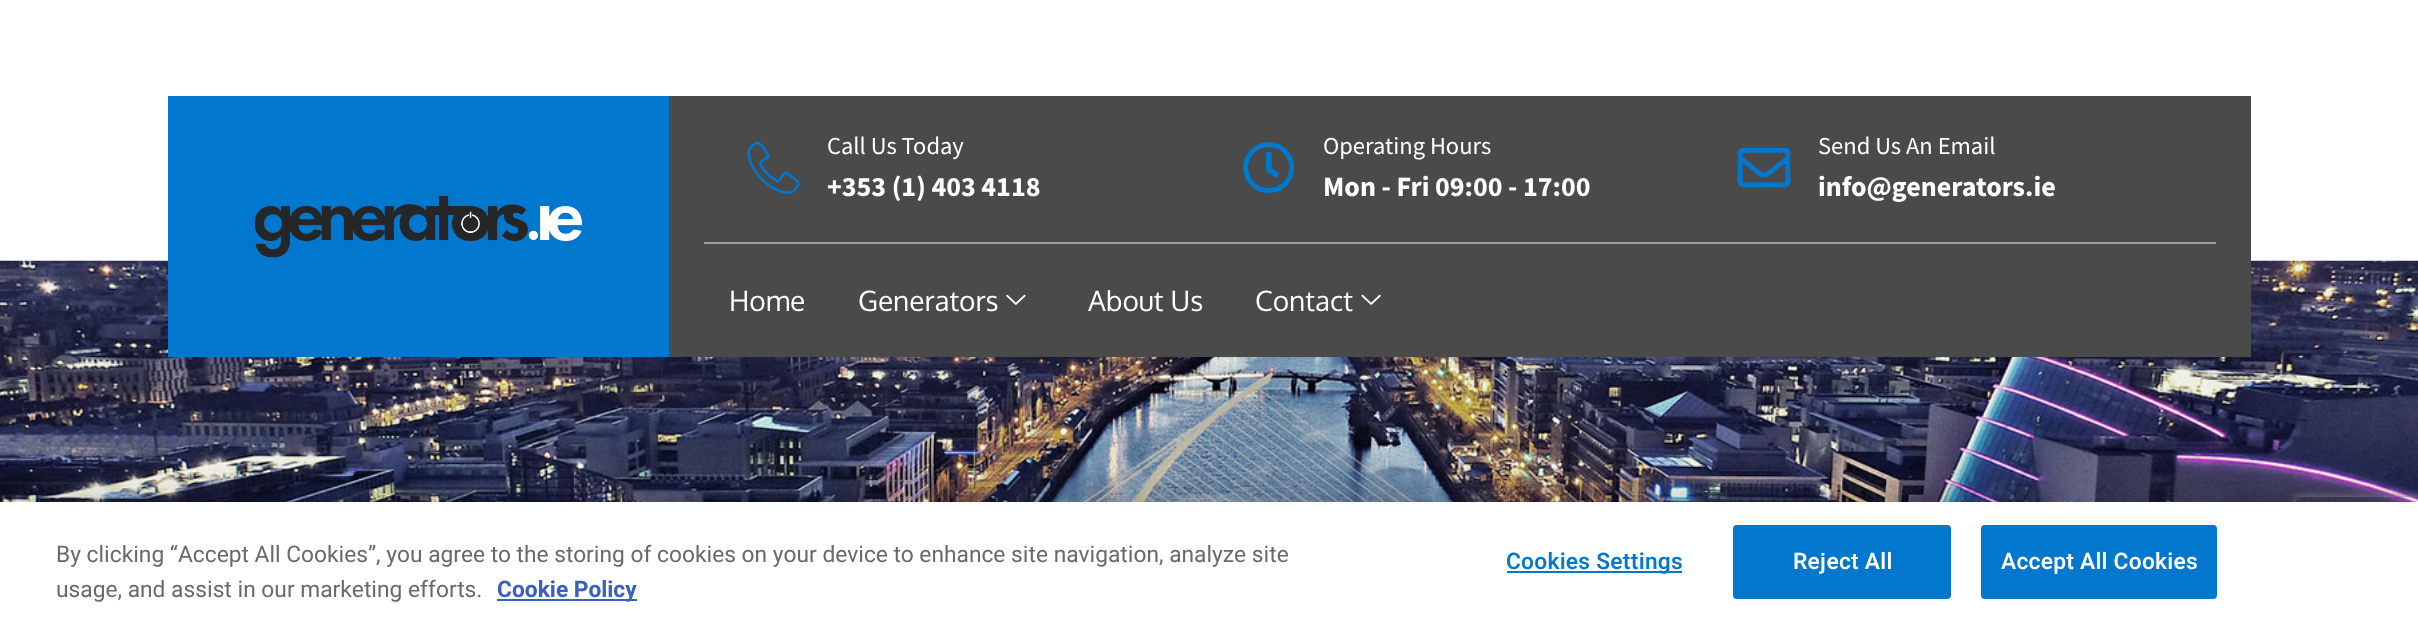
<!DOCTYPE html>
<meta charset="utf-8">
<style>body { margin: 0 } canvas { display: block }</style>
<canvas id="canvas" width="2418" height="626"></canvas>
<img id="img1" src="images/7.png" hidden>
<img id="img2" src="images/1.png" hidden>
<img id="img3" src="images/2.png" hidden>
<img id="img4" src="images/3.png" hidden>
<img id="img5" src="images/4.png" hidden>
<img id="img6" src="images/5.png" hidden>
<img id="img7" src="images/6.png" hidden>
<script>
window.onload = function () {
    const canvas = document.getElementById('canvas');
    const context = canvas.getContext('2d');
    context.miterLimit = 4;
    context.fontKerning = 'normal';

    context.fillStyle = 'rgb(255, 255, 255)';
    context.fillRect(0, 0, 2418, 626);
    context.drawImage(document.getElementById('img1'), 0, 260, 2418, 242);
    context.fillStyle = 'rgb(1, 119, 206)';
    context.fillRect(168, 96, 501, 261);
    context.drawImage(document.getElementById('img2'), 254, 195, 329, 63);
    context.fillStyle = 'rgb(74, 74, 74)';
    context.fillRect(669, 96, 1582, 261);
    context.fillStyle = 'rgb(158, 158, 158)';
    context.fillRect(704, 242, 1512, 2);
    context.drawImage(document.getElementById('img3'), 747, 141, 53, 53);
    context.drawImage(document.getElementById('img4'), 1243, 142, 52, 51);
    context.drawImage(document.getElementById('img5'), 1737, 147, 54, 41);
    context.drawImage(document.getElementById('img6'), 1006, 294, 20, 11);
    context.drawImage(document.getElementById('img7'), 1361, 294, 20, 11);
    context.fillStyle = 'rgba(0, 0, 0, 0.2)';
    context.filter = 'blur(16px)';
    context.beginPath();
    context.rect(0, 502, 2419, 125);
    context.fill();
    context.filter = 'none';
    context.save();
    context.beginPath();
    context.moveTo(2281, 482);
    context.lineTo(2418, 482);
    context.lineTo(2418, 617);
    context.lineTo(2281, 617);
    context.closePath();
    context.moveTo(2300, 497);
    context.lineTo(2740, 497);
    context.bezierCurveTo(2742, 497, 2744, 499, 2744, 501);
    context.lineTo(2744, 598);
    context.bezierCurveTo(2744, 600, 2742, 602, 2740, 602);
    context.lineTo(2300, 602);
    context.bezierCurveTo(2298, 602, 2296, 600, 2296, 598);
    context.lineTo(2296, 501);
    context.bezierCurveTo(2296, 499, 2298, 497, 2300, 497);
    context.closePath();
    context.clip('evenodd');
    context.fillStyle = 'rgb(128, 128, 128)';
    context.filter = 'blur(4.5px)';
    context.beginPath();
    context.roundRect(2296, 497, 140, 105, 4);
    context.fill();
    context.filter = 'none';
    context.restore();
    context.fillStyle = 'rgb(255, 255, 255)';
    context.fillRect(0, 502, 2418, 124);
    context.fillStyle = 'rgb(56, 96, 190)';
    context.fillRect(497, 599, 140, 2);
    context.fillStyle = 'rgb(1, 119, 206)';
    context.fillRect(1507, 571, 175, 2);
    context.beginPath();
    context.roundRect(1734, 526, 216, 72, 3);
    context.fill();
    context.strokeStyle = 'rgb(1, 119, 206)';
    context.lineWidth = 2;
    context.stroke();
    context.beginPath();
    context.roundRect(1982, 526, 234, 72, 3);
    context.fill();
    context.stroke();
    context.font = '24.5px Source Sans Pro';
    context.fillStyle = 'rgb(255, 255, 255)';
    context.fillText('Call Us Today', 827, 154);
    context.font = 'bold 28px Source Sans Pro';
    context.fillText('+353 (1) 403 4118', 827, 196);
    context.font = '24.5px Source Sans Pro';
    context.fillText('Operating Hours', 1323, 154);
    context.font = 'bold 28px Source Sans Pro';
    context.fillText('Mon - Fri 09:00 - 17:00', 1323, 196);
    context.font = '24.5px Source Sans Pro';
    context.fillText('Send Us An Email', 1818, 154);
    context.font = 'bold 28px Source Sans Pro';
    context.fillText('info@generators.ie', 1818, 196);
    context.font = '28px Oxygen';
    context.fillText('Home', 729, 311);
    context.fillText('Generators', 858, 311);
    context.fillText('About Us', 1088, 311);
    context.fillText('Contact', 1255, 311);
    context.font = '22.75px Heebo';
    context.fillStyle = 'rgb(105, 105, 105)';
    context.fillText('By clicking “Accept All Cookies”, you agree to the storing of cookies on your device to enhance site navigation, analyze site', 56, 562);
    context.fillText('usage, and assist in our marketing efforts.', 56, 597);
    context.font = 'bold 22.75px Heebo';
    context.fillStyle = 'rgb(56, 96, 190)';
    context.fillText('Cookie Policy', 497, 597);
    context.letterSpacing = '0.25px';
    context.font = '600 22.75px Heebo';
    context.fillStyle = 'rgb(1, 119, 206)';
    context.fillText('Cookies Settings', 1506, 569);
    context.fillStyle = 'rgb(255, 255, 255)';
    context.fillText('Reject All', 1793, 569);
    context.fillText('Accept All Cookies', 2001, 569);
};
</script>
